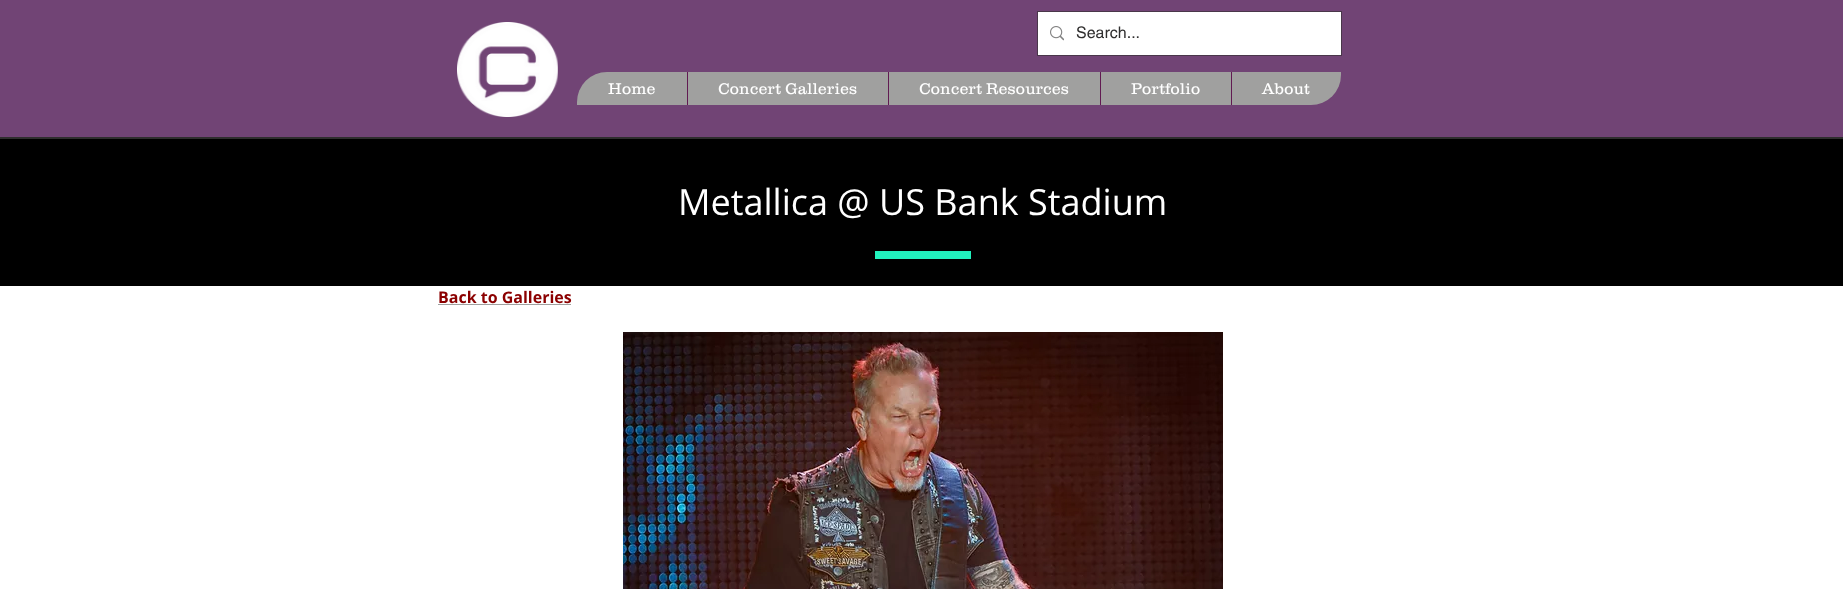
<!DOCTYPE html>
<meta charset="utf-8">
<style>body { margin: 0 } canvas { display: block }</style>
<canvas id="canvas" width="1843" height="589"></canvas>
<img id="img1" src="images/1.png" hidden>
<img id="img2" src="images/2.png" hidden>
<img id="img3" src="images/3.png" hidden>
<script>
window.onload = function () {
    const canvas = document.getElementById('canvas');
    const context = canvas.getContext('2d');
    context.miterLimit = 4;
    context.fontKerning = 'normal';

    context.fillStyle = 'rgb(255, 255, 255)';
    context.fillRect(0, 0, 1843, 589);
    context.fillStyle = 'rgb(113, 68, 117)';
    context.fillRect(0, 0, 1843, 137);
    context.fillStyle = 'rgb(47, 46, 46)';
    context.fillRect(0, 137, 1843, 2);
    context.drawImage(document.getElementById('img1'), 457, 22, 101, 95);
    context.strokeStyle = 'rgb(73, 55, 74)';
    context.strokeRect(1037.5, 11.5, 304, 44);
    context.fillStyle = 'rgb(255, 255, 255)';
    context.fillRect(1038, 12, 303, 43);
    context.drawImage(document.getElementById('img2'), 1050, 26, 14, 15);
    context.fillStyle = 'rgb(160, 160, 159)';
    context.beginPath();
    context.roundRect(577, 72, 764, 33, [30, 0, 30, 0]);
    context.fill();
    context.fillStyle = 'rgb(97, 26, 82)';
    context.fillRect(687, 72, 1, 33);
    context.fillRect(888, 72, 1, 33);
    context.fillRect(1100, 72, 1, 33);
    context.fillRect(1231, 72, 1, 33);
    context.fillStyle = 'rgb(0, 0, 0)';
    context.fillRect(0, 139, 1843, 147);
    context.fillStyle = 'rgb(33, 242, 189)';
    context.fillRect(875, 251, 96, 8);
    context.fillStyle = 'rgb(160, 160, 159)';
    context.fillRect(438, 304, 133, 1);
    context.drawImage(document.getElementById('img3'), 623, 332, 600, 257);
    context.font = '16px helvetica';
    context.fillStyle = 'rgb(47, 46, 46)';
    context.fillText('Search...', 1076, 38);
    context.font = '300 16px "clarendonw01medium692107"';
    context.fillStyle = 'rgb(255, 255, 255)';
    context.fillText('Home', 608, 94);
    context.fillText('Concert Galleries', 718, 94);
    context.fillText('Concert Resources', 919, 94);
    context.fillText('Portfolio', 1131, 94);
    context.fillText('About', 1262, 94);
    context.font = '36px Open Sans';
    context.fillText('Metallica @ US Bank Stadium', 678, 215);
    context.font = 'bold 16px Open Sans';
    context.fillStyle = 'rgb(139, 0, 0)';
    context.fillText('Back to Galleries', 438, 303);
};
</script>
